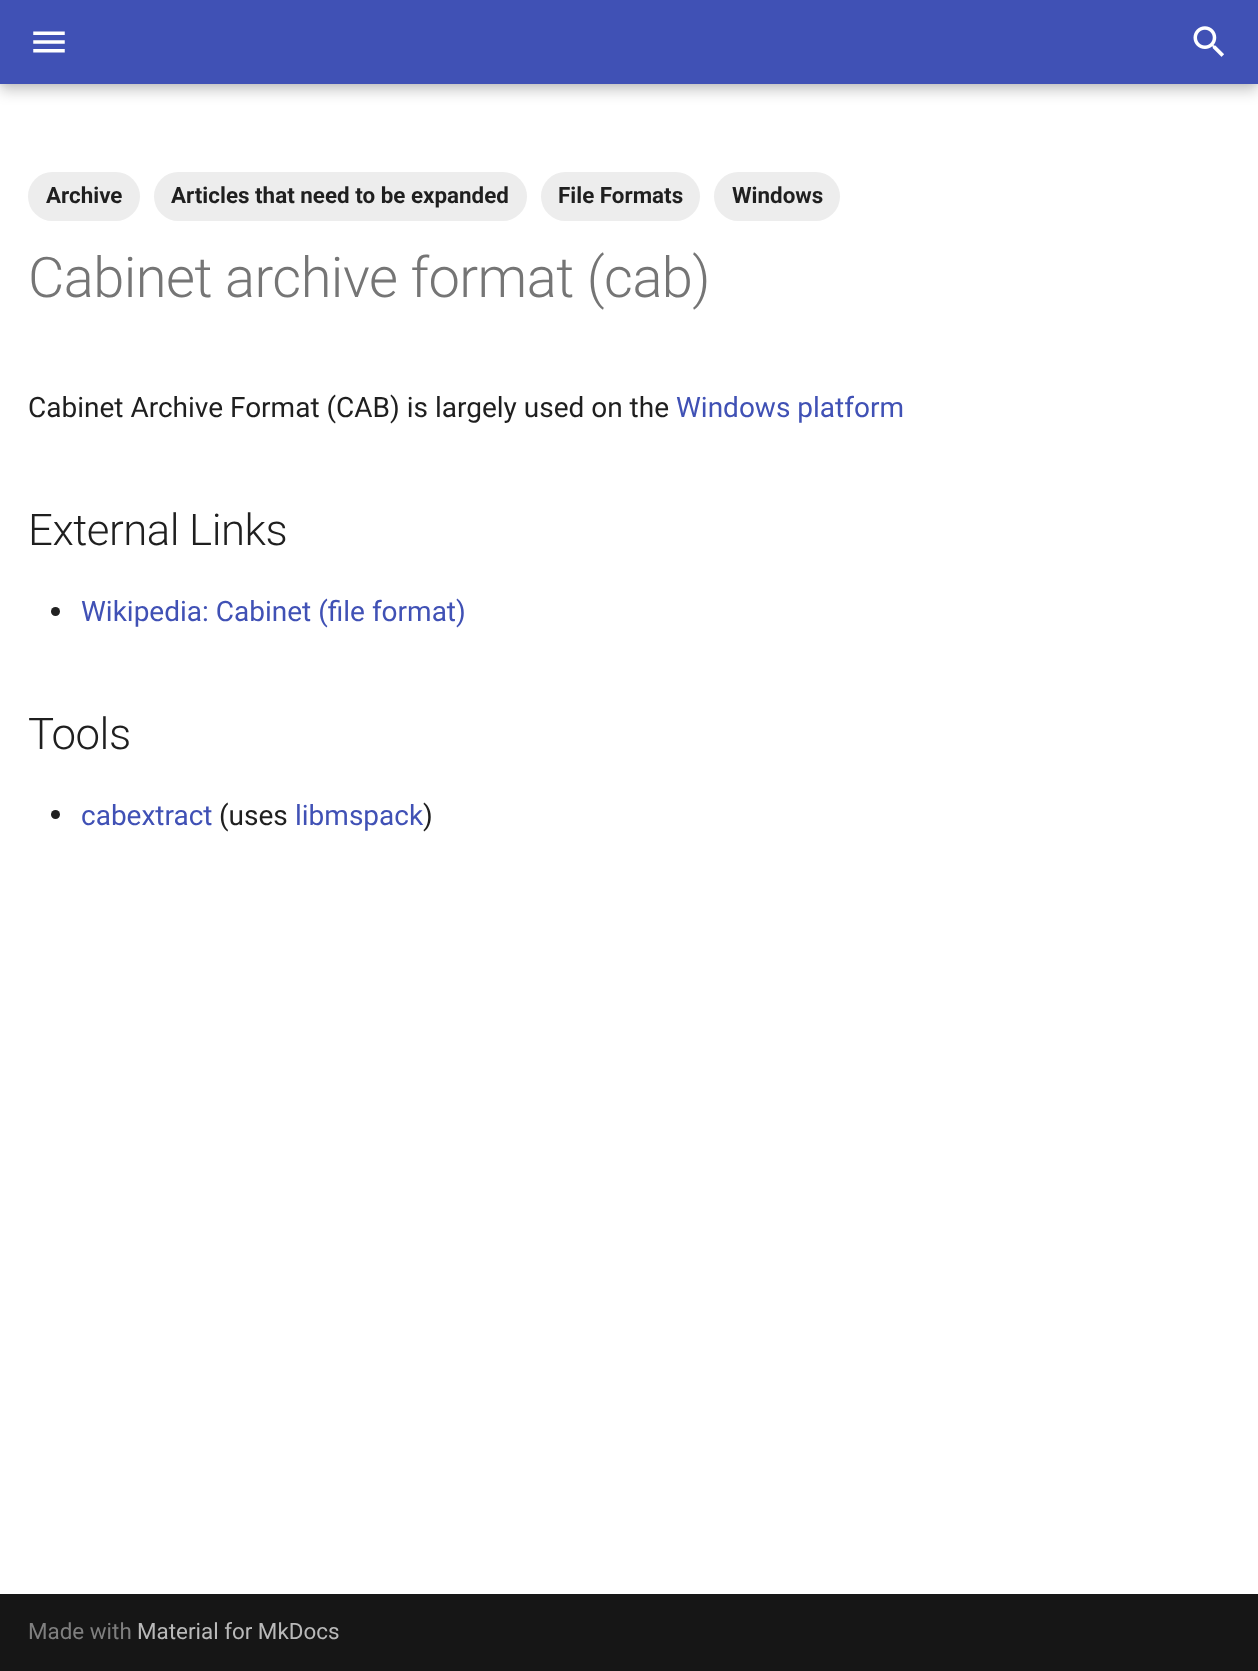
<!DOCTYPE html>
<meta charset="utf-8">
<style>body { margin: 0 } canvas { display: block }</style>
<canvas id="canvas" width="1258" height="1671"></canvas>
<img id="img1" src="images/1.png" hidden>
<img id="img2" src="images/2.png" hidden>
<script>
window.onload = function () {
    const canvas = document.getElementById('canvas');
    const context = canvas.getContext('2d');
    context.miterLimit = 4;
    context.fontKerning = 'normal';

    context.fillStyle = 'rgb(255, 255, 255)';
    context.fillRect(0, 0, 1258, 1671);
    context.fillStyle = 'rgba(0, 0, 0, 0.2)';
    context.filter = 'blur(7px)';
    context.beginPath();
    context.rect(0, 7, 1258, 84);
    context.fill();
    context.filter = 'none';
    context.fillStyle = 'rgba(0, 0, 0, 0.1)';
    context.filter = 'blur(3.5px)';
    context.beginPath();
    context.rect(0, 0, 1258, 84);
    context.fill();
    context.filter = 'none';
    context.fillStyle = 'rgb(64, 81, 181)';
    context.fillRect(0, 0, 1258, 84);
    context.drawImage(document.getElementById('img1'), 33, 31, 32, 22);
    context.drawImage(document.getElementById('img2'), 1193, 26, 31, 31);
    context.fillStyle = 'rgb(237, 237, 237)';
    context.beginPath();
    context.roundRect(28, 172, 112, 49, 24.5);
    context.fill();
    context.beginPath();
    context.roundRect(154, 172, 373, 49, 24.5);
    context.fill();
    context.beginPath();
    context.roundRect(541, 172, 159, 49, 24.5);
    context.fill();
    context.beginPath();
    context.roundRect(714, 172, 126, 49, 24.5);
    context.fill();
    context.fillStyle = 'rgb(33, 33, 33)';
    context.beginPath();
    context.arc(55.5, 611.5, 4.5, 0, 2 * Math.PI);
    context.fill();
    context.beginPath();
    context.arc(55.5, 814.5, 4.5, 0, 2 * Math.PI);
    context.fill();
    context.fillStyle = 'rgb(22, 22, 22)';
    context.fillRect(0, 1594, 1258, 77);
    context.font = 'bold 22.4px Roboto';
    context.fillStyle = 'rgb(31, 31, 31)';
    context.fillText('Archive', 46, 203);
    context.fillText('Articles that need to be expanded', 171, 203);
    context.fillText('File Formats', 558, 203);
    context.fillText('Windows', 732, 203);
    context.letterSpacing = '-0.55px';
    context.font = '300 56px Roboto';
    context.fillStyle = 'rgb(117, 117, 117)';
    context.fillText('Cabinet archive format (cab)', 28, 297);
    context.letterSpacing = '0px';
    context.font = '28px Roboto';
    context.fillStyle = 'rgb(31, 31, 31)';
    context.fillText('Cabinet Archive Format (CAB) is largely used on the', 28, 417);
    context.fillStyle = 'rgb(64, 81, 181)';
    context.fillText('Windows platform', 676, 417);
    context.letterSpacing = '-0.5px';
    context.font = '300 43.75px Roboto';
    context.fillStyle = 'rgb(31, 31, 31)';
    context.fillText('External Links', 28, 545);
    context.letterSpacing = '0px';
    context.font = '28px Roboto';
    context.fillStyle = 'rgb(64, 81, 181)';
    context.fillText('Wikipedia: Cabinet (file format)', 81, 621);
    context.letterSpacing = '-0.5px';
    context.font = '300 43.75px Roboto';
    context.fillStyle = 'rgb(31, 31, 31)';
    context.fillText('Tools', 28, 749);
    context.letterSpacing = '0px';
    context.font = '28px Roboto';
    context.fillStyle = 'rgb(64, 81, 181)';
    context.fillText('cabextract', 81, 825);
    context.fillStyle = 'rgb(31, 31, 31)';
    context.fillText('(uses', 219, 825);
    context.fillStyle = 'rgb(64, 81, 181)';
    context.fillText('libmspack', 295, 825);
    context.fillStyle = 'rgb(31, 31, 31)';
    context.fillText(')', 423, 825);
    context.font = '22.4px Roboto';
    context.fillStyle = 'rgb(127, 127, 127)';
    context.fillText('Made with', 28, 1639);
    context.fillStyle = 'rgb(185, 185, 185)';
    context.fillText('Material for MkDocs', 137, 1639);
};
</script>
